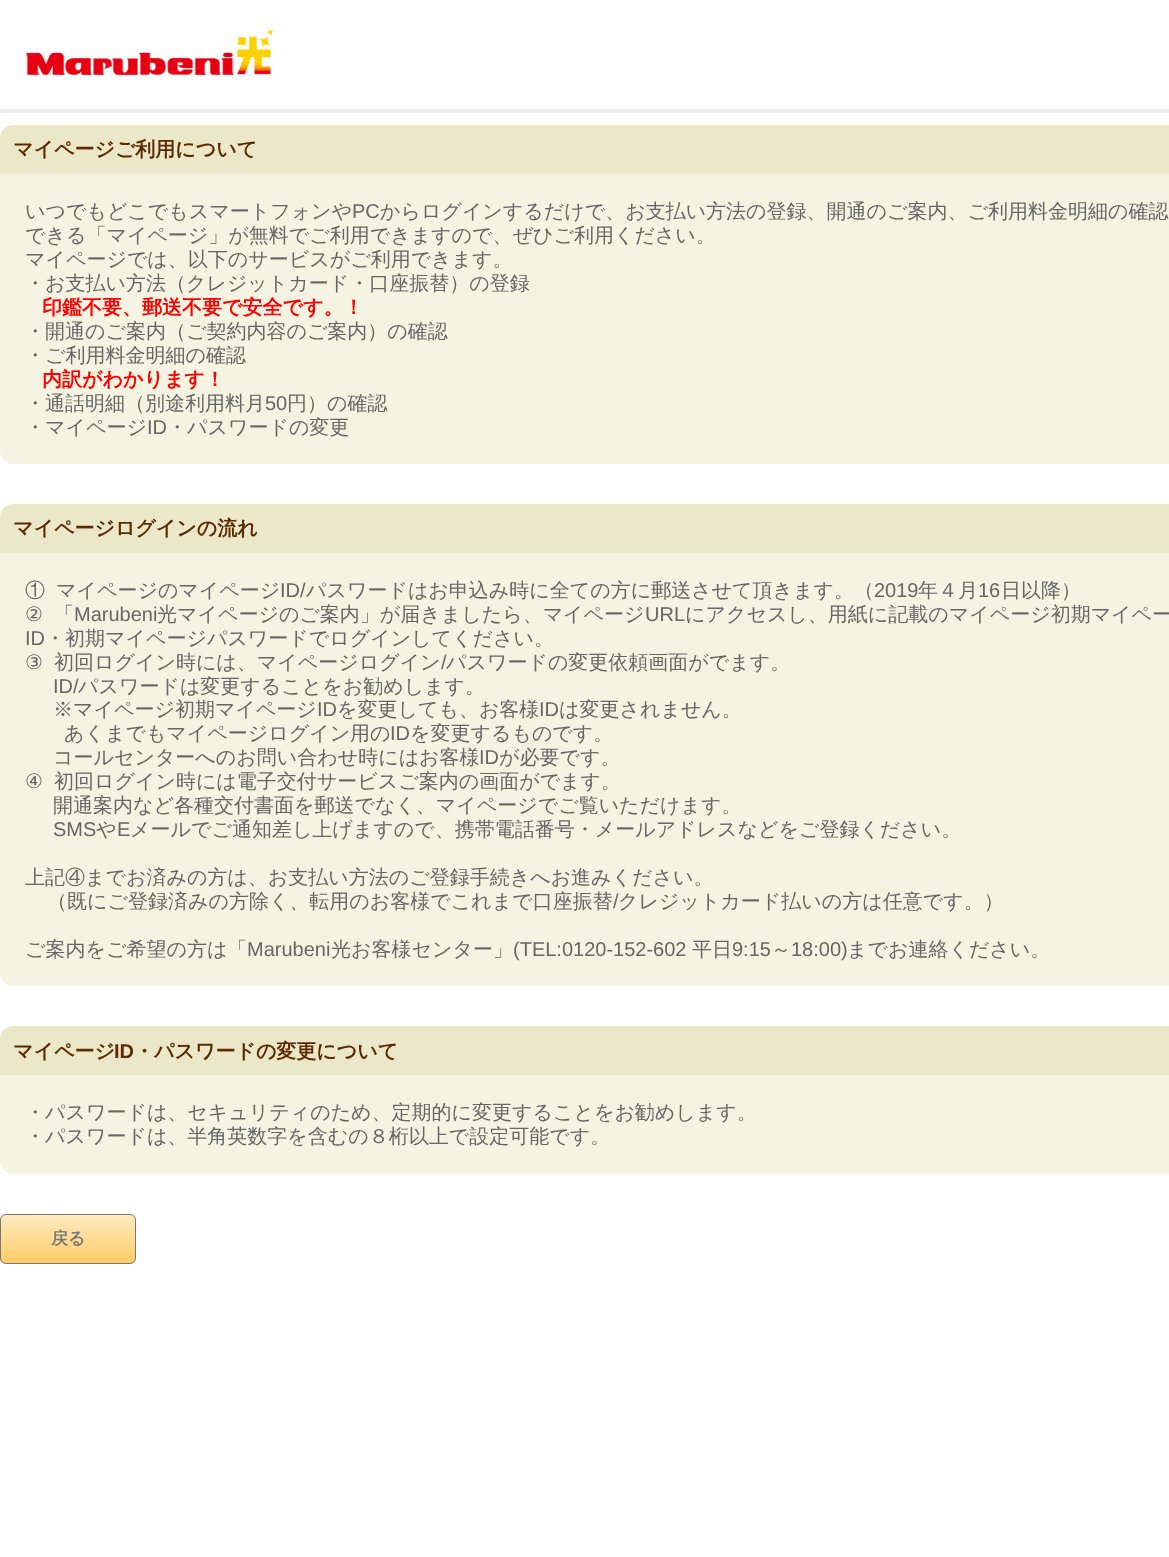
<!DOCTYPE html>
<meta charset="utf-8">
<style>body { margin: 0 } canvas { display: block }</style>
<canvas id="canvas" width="1169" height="1557"></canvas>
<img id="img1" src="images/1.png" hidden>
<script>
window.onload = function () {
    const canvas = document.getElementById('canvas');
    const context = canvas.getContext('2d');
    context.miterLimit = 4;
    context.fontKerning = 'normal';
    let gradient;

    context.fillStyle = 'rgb(255, 255, 255)';
    context.fillRect(0, 0, 1169, 1557);
    context.drawImage(document.getElementById('img1'), 26, 28, 248, 48);
    context.fillStyle = 'rgb(238, 238, 238)';
    context.fillRect(0, 109, 1169, 4);
    context.fillStyle = 'rgb(235, 232, 201)';
    context.beginPath();
    context.moveTo(13, 125);
    context.lineTo(1169, 125);
    context.bezierCurveTo(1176, 125, 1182, 131, 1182, 138);
    context.lineTo(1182, 174);
    context.lineTo(0, 174);
    context.lineTo(0, 138);
    context.bezierCurveTo(0, 131, 6, 125, 13, 125);
    context.closePath();
    context.fill();
    context.fillStyle = 'rgb(245, 244, 226)';
    context.beginPath();
    context.moveTo(0, 174);
    context.lineTo(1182, 174);
    context.lineTo(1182, 451);
    context.bezierCurveTo(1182, 458, 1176, 464, 1169, 464);
    context.lineTo(13, 464);
    context.bezierCurveTo(6, 464, 0, 458, 0, 451);
    context.closePath();
    context.fill();
    context.fillStyle = 'rgb(235, 232, 201)';
    context.beginPath();
    context.moveTo(13, 504);
    context.lineTo(1169, 504);
    context.bezierCurveTo(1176, 504, 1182, 510, 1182, 517);
    context.lineTo(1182, 553);
    context.lineTo(0, 553);
    context.lineTo(0, 517);
    context.bezierCurveTo(0, 510, 6, 504, 13, 504);
    context.closePath();
    context.fill();
    context.fillStyle = 'rgb(245, 244, 226)';
    context.beginPath();
    context.moveTo(0, 553);
    context.lineTo(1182, 553);
    context.lineTo(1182, 973);
    context.bezierCurveTo(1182, 980, 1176, 986, 1169, 986);
    context.lineTo(13, 986);
    context.bezierCurveTo(6, 986, 0, 980, 0, 973);
    context.closePath();
    context.fill();
    context.fillStyle = 'rgb(235, 232, 201)';
    context.beginPath();
    context.moveTo(13, 1026);
    context.lineTo(1169, 1026);
    context.bezierCurveTo(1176, 1026, 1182, 1032, 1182, 1039);
    context.lineTo(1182, 1075);
    context.lineTo(0, 1075);
    context.lineTo(0, 1039);
    context.bezierCurveTo(0, 1032, 6, 1026, 13, 1026);
    context.closePath();
    context.fill();
    context.fillStyle = 'rgb(245, 244, 226)';
    context.beginPath();
    context.moveTo(0, 1075);
    context.lineTo(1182, 1075);
    context.lineTo(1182, 1161);
    context.bezierCurveTo(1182, 1168, 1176, 1174, 1169, 1174);
    context.lineTo(13, 1174);
    context.bezierCurveTo(6, 1174, 0, 1168, 0, 1161);
    context.closePath();
    context.fill();
    context.save();
    context.beginPath();
    context.roundRect(0, 1214, 136, 50, 6);
    context.clip();
    gradient = context.createLinearGradient(68, 1215, 68, 1263);
    gradient.addColorStop(0, 'rgb(255, 235, 193)');
    gradient.addColorStop(1, 'rgb(255, 204, 102)');
    context.fillStyle = gradient;
    context.fillRect(0, 1215, 136, 48);
    context.restore();
    context.beginPath();
    context.roundRect(0.5, 1214.5, 135, 49, 5.5);
    context.strokeStyle = 'rgb(119, 119, 119)';
    context.stroke();
    context.font = 'bold 20px WenQuanYi Zen Hei';
    context.fillStyle = 'rgb(93, 41, 1)';
    context.fillText('マイページご利用について', 13, 156);
    context.font = '500 20px WenQuanYi Zen Hei';
    context.fillStyle = 'rgb(102, 102, 102)';
    context.fillText('いつでもどこでもスマートフォンや', 25, 218);
    context.font = '20px Liberation Sans';
    context.fillText('PC', 352, 218);
    context.font = '500 20px WenQuanYi Zen Hei';
    context.fillText('からログインするだけで、お支払い方法の登録、開通のご案内、ご利用料金明細の確認', 380, 218);
    context.fillText('できる「マイページ」が無料でご利用できますので、ぜひご利用ください。', 25, 242);
    context.fillText('マイページでは、以下のサービスがご利用できます。', 25, 266);
    context.fillText('・お支払い方法（クレジットカード・口座振替）の登録', 25, 290);
    context.font = 'bold 20px WenQuanYi Zen Hei';
    context.fillStyle = 'rgb(255, 0, 0)';
    context.fillText('印鑑不要、郵送不要で安全です。！', 42, 314);
    context.font = '500 20px WenQuanYi Zen Hei';
    context.fillStyle = 'rgb(102, 102, 102)';
    context.fillText('・開通のご案内（ご契約内容のご案内）の確認', 25, 338);
    context.fillText('・ご利用料金明細の確認', 25, 362);
    context.font = 'bold 20px WenQuanYi Zen Hei';
    context.fillStyle = 'rgb(255, 0, 0)';
    context.fillText('内訳がわかります！', 42, 386);
    context.font = '500 20px WenQuanYi Zen Hei';
    context.fillStyle = 'rgb(102, 102, 102)';
    context.fillText('・通話明細（別途利用料月', 25, 410);
    context.font = '20px Liberation Sans';
    context.fillText('50', 265, 410);
    context.font = '500 20px WenQuanYi Zen Hei';
    context.fillText('円）の確認', 287, 410);
    context.fillText('・マイページ', 25, 434);
    context.font = '20px Liberation Sans';
    context.fillText('ID', 147, 434);
    context.font = '500 20px WenQuanYi Zen Hei';
    context.fillText('・パスワードの変更', 167, 434);
    context.font = 'bold 20px WenQuanYi Zen Hei';
    context.fillStyle = 'rgb(93, 41, 1)';
    context.fillText('マイページログインの流れ', 13, 535);
    context.font = '500 20px WenQuanYi Zen Hei';
    context.fillStyle = 'rgb(102, 102, 102)';
    context.fillText('①', 25, 597);
    context.fillText('マイページのマイページ', 56, 597);
    context.font = '20px Liberation Sans';
    context.fillText('ID/', 280, 597);
    context.font = '500 20px WenQuanYi Zen Hei';
    context.fillText('パスワードはお申込み時に全ての方に郵送させて頂きます。（', 306, 597);
    context.font = '20px Liberation Sans';
    context.fillText('2019', 874, 597);
    context.font = '500 20px WenQuanYi Zen Hei';
    context.fillText('年４月', 918, 597);
    context.font = '20px Liberation Sans';
    context.fillText('16', 978, 597);
    context.font = '500 20px WenQuanYi Zen Hei';
    context.fillText('日以降）', 1001, 597);
    context.font = '20px DejaVu Sans';
    context.fillText('②', 25, 621);
    context.font = '500 20px WenQuanYi Zen Hei';
    context.fillText('「', 54, 621);
    context.font = '20px Liberation Sans';
    context.fillText('Marubeni', 74, 621);
    context.font = '500 20px WenQuanYi Zen Hei';
    context.fillText('光マイページのご案内」が届きましたら、マイページ', 157, 621);
    context.font = '20px Liberation Sans';
    context.fillText('URL', 645, 621);
    context.font = '500 20px WenQuanYi Zen Hei';
    context.fillText('にアクセスし、用紙に記載のマイページ初期マイペー', 685, 621);
    context.font = '20px Liberation Sans';
    context.fillText('ID', 25, 645);
    context.font = '500 20px WenQuanYi Zen Hei';
    context.fillText('・初期マイページパスワードでログインしてください。', 45, 645);
    context.font = '20px DejaVu Sans';
    context.fillText('③', 25, 669);
    context.font = '500 20px WenQuanYi Zen Hei';
    context.fillText('初回ログイン時には、マイページログイン', 54, 669);
    context.font = '20px Liberation Sans';
    context.fillText('/', 441, 669);
    context.font = '500 20px WenQuanYi Zen Hei';
    context.fillText('パスワードの変更依頼画面がでます。', 446, 669);
    context.font = '20px Liberation Sans';
    context.fillText('ID/', 53, 693);
    context.font = '500 20px WenQuanYi Zen Hei';
    context.fillText('パスワードは変更することをお勧めします。', 78, 693);
    context.fillText('※マイページ初期マイページ', 53, 716);
    context.font = '20px Liberation Sans';
    context.fillText('ID', 317, 716);
    context.font = '500 20px WenQuanYi Zen Hei';
    context.fillText('を変更しても、お客様', 337, 716);
    context.font = '20px Liberation Sans';
    context.fillText('ID', 539, 716);
    context.font = '500 20px WenQuanYi Zen Hei';
    context.fillText('は変更されません。', 559, 716);
    context.fillText('あくまでもマイページログイン用の', 64, 740);
    context.font = '20px Liberation Sans';
    context.fillText('ID', 390, 740);
    context.font = '500 20px WenQuanYi Zen Hei';
    context.fillText('を変更するものです。', 410, 740);
    context.fillText('コールセンターへのお問い合わせ時にはお客様', 53, 764);
    context.font = '20px Liberation Sans';
    context.fillText('ID', 479, 764);
    context.font = '500 20px WenQuanYi Zen Hei';
    context.fillText('が必要です。', 499, 764);
    context.font = '20px DejaVu Sans';
    context.fillText('④', 25, 788);
    context.font = '500 20px WenQuanYi Zen Hei';
    context.fillText('初回ログイン時には電子交付サービスご案内の画面がでます。', 54, 788);
    context.fillText('開通案内など各種交付書面を郵送でなく、マイページでご覧いただけます。', 53, 812);
    context.font = '20px Liberation Sans';
    context.fillText('SMS', 53, 836);
    context.font = '500 20px WenQuanYi Zen Hei';
    context.fillText('や', 96, 836);
    context.font = '20px Liberation Sans';
    context.fillText('E', 117, 836);
    context.font = '500 20px WenQuanYi Zen Hei';
    context.fillText('メールでご通知差し上げますので、携帯電話番号・メールアドレスなどをご登録ください。', 130, 836);
    context.fillText('上記④までお済みの方は、お支払い方法のご登録手続きへお進みください。', 25, 884);
    context.fillText('（既にご登録済みの方除く、転用のお客様でこれまで口座振替', 47, 908);
    context.font = '20px Liberation Sans';
    context.fillText('/', 613, 908);
    context.font = '500 20px WenQuanYi Zen Hei';
    context.fillText('クレジットカード払いの方は任意です。）', 618, 908);
    context.fillText('ご案内をご希望の方は「', 25, 956);
    context.font = '20px Liberation Sans';
    context.fillText('Marubeni', 247, 956);
    context.font = '500 20px WenQuanYi Zen Hei';
    context.fillText('光お客様センター」', 331, 956);
    context.font = '20px Liberation Sans';
    context.fillText('(TEL:0120-152-602', 513, 956);
    context.font = '500 20px WenQuanYi Zen Hei';
    context.fillText('平日', 692, 956);
    context.font = '20px Liberation Sans';
    context.fillText('9:15', 732, 956);
    context.font = '500 20px WenQuanYi Zen Hei';
    context.fillText('～', 771, 956);
    context.font = '20px Liberation Sans';
    context.fillText('18:00)', 791, 956);
    context.font = '500 20px WenQuanYi Zen Hei';
    context.fillText('までお連絡ください。', 847, 956);
    context.font = 'bold 20px WenQuanYi Zen Hei';
    context.fillStyle = 'rgb(93, 41, 1)';
    context.fillText('マイページ', 13, 1058);
    context.font = 'bold 20px Liberation Sans';
    context.fillText('ID', 114, 1058);
    context.font = 'bold 20px WenQuanYi Zen Hei';
    context.fillText('・パスワードの変更について', 134, 1058);
    context.font = '500 20px WenQuanYi Zen Hei';
    context.fillStyle = 'rgb(102, 102, 102)';
    context.fillText('・パスワードは、セキュリティのため、定期的に変更することをお勧めします。', 25, 1119);
    context.fillText('・パスワードは、半角英数字を含むの８桁以上で設定可能です。', 25, 1143);
    context.font = 'bold 17px WenQuanYi Zen Hei';
    context.fillStyle = 'rgb(119, 119, 119)';
    context.fillText('戻る', 51, 1244);
};
</script>
